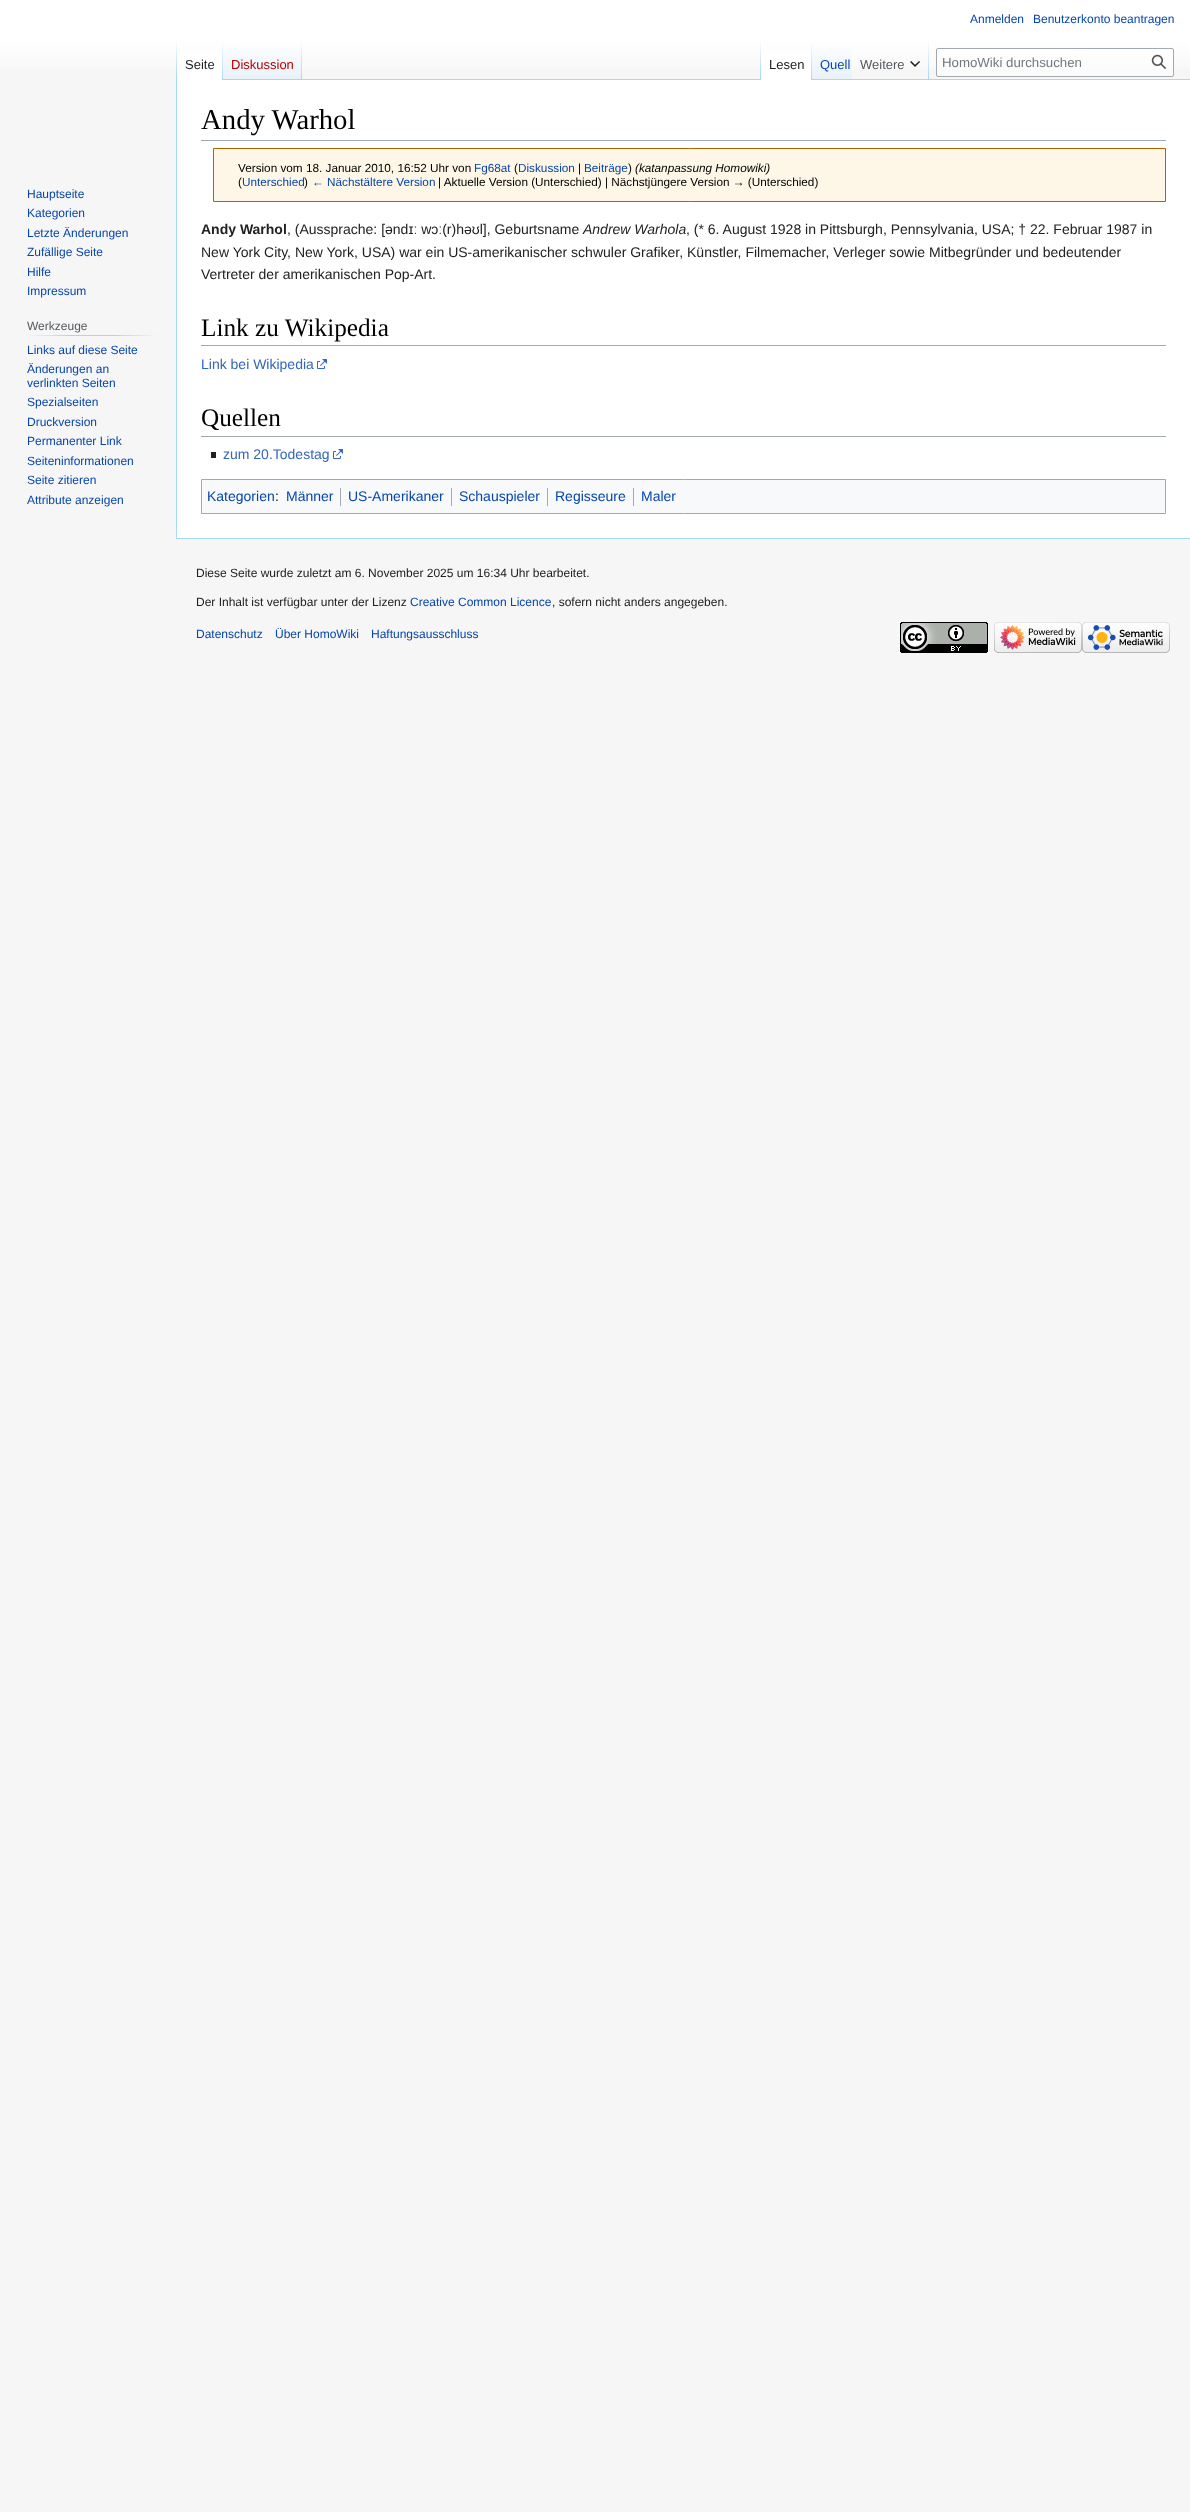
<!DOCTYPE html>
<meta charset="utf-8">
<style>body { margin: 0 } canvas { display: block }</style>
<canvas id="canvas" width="1190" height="2512"></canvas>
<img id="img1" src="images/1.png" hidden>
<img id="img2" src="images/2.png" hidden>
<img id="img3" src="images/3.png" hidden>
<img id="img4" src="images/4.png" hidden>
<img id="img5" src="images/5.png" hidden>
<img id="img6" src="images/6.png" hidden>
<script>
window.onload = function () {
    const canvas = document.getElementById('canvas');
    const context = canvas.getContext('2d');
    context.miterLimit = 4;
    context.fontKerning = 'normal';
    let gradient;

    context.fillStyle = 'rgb(246, 246, 246)';
    context.fillRect(0, 0, 1190, 2512);
    gradient = context.createLinearGradient(595, 0, 595, 80);
    gradient.addColorStop(0.5, 'rgb(255, 255, 255)');
    gradient.addColorStop(1, 'rgb(246, 246, 246)');
    context.fillStyle = gradient;
    context.fillRect(0, 0, 1190, 69);
    context.fillStyle = 'rgb(167, 215, 249)';
    context.fillRect(176, 538, 1014, 1);
    context.fillRect(176, 79, 1, 460);
    gradient = context.createLinearGradient(177, 40, 177, 80);
    gradient.addColorStop(0, 'rgba(167, 215, 249, 0)');
    gradient.addColorStop(1, 'rgb(167, 215, 249)');
    context.fillStyle = gradient;
    context.fillRect(176, 40, 1, 40);
    context.fillStyle = 'rgb(255, 255, 255)';
    context.fillRect(177, 51, 45, 29);
    gradient = context.createLinearGradient(223, 40, 223, 80);
    gradient.addColorStop(0, 'rgb(255, 255, 255)');
    gradient.addColorStop(1, 'rgb(167, 215, 249)');
    context.fillStyle = gradient;
    context.fillRect(222, 40, 1, 40);
    gradient = context.createLinearGradient(263, 80, 263, 40);
    gradient.addColorStop(0, 'rgb(119, 193, 246)');
    gradient.addColorStop(0.03, 'rgb(232, 242, 248)');
    gradient.addColorStop(1, 'rgb(255, 255, 255)');
    context.fillStyle = gradient;
    context.fillRect(223, 46, 79, 34);
    gradient = context.createLinearGradient(302, 40, 302, 80);
    gradient.addColorStop(0, 'rgba(167, 215, 249, 0)');
    gradient.addColorStop(1, 'rgb(167, 215, 249)');
    context.fillStyle = gradient;
    context.fillRect(301, 40, 1, 40);
    context.fillStyle = 'rgb(167, 215, 249)';
    context.fillRect(302, 79, 888, 1);
    gradient = context.createLinearGradient(761, 40, 761, 80);
    gradient.addColorStop(0, 'rgba(167, 215, 249, 0)');
    gradient.addColorStop(1, 'rgb(167, 215, 249)');
    context.fillStyle = gradient;
    context.fillRect(760, 40, 1, 40);
    context.fillStyle = 'rgb(255, 255, 255)';
    context.fillRect(761, 51, 50, 29);
    gradient = context.createLinearGradient(812, 40, 812, 80);
    gradient.addColorStop(0, 'rgb(255, 255, 255)');
    gradient.addColorStop(1, 'rgb(167, 215, 249)');
    context.fillStyle = gradient;
    context.fillRect(811, 40, 1, 40);
    gradient = context.createLinearGradient(832, 80, 832, 40);
    gradient.addColorStop(0, 'rgb(119, 193, 246)');
    gradient.addColorStop(0.03, 'rgb(232, 242, 248)');
    gradient.addColorStop(1, 'rgb(255, 255, 255)');
    context.fillStyle = gradient;
    context.fillRect(812, 46, 40, 33);
    gradient = context.createLinearGradient(929, 40, 929, 80);
    gradient.addColorStop(0, 'rgba(167, 215, 249, 0)');
    gradient.addColorStop(1, 'rgb(167, 215, 249)');
    context.fillStyle = gradient;
    context.fillRect(928, 40, 1, 40);
    context.drawImage(document.getElementById('img1'), 910, 61, 10, 6);
    context.fillStyle = 'rgba(255, 255, 255, 0.5)';
    context.beginPath();
    context.roundRect(936.5, 48.5, 237, 28, 1.5);
    context.fill();
    context.strokeStyle = 'rgb(162, 169, 177)';
    context.stroke();
    context.drawImage(document.getElementById('img2'), 1151, 54, 15, 15);
    gradient = context.createLinearGradient(27, 336, 158, 336);
    gradient.addColorStop(0, 'rgb(246, 246, 246)');
    gradient.addColorStop(0.33, 'rgb(200, 204, 209)');
    gradient.addColorStop(0.66, 'rgb(200, 204, 209)');
    gradient.addColorStop(1, 'rgb(246, 246, 246)');
    context.fillStyle = gradient;
    context.fillRect(27, 335, 131, 1);
    context.fillStyle = 'rgb(255, 255, 255)';
    context.fillRect(177, 80, 1013, 458);
    context.fillStyle = 'rgb(162, 169, 177)';
    context.fillRect(201, 140, 965, 1);
    context.fillStyle = 'rgb(254, 246, 231)';
    context.beginPath();
    context.rect(213.5, 148.5, 952, 53);
    context.fill();
    context.strokeStyle = 'rgb(172, 102, 0)';
    context.stroke();
    context.fillStyle = 'rgb(162, 169, 177)';
    context.fillRect(201, 345, 965, 1);
    context.drawImage(document.getElementById('img3'), 317, 359, 10, 10);
    context.fillRect(201, 436, 965, 1);
    context.fillStyle = 'rgb(32, 33, 34)';
    context.fillRect(211, 452, 5, 6);
    context.drawImage(document.getElementById('img3'), 333, 449, 10, 10);
    context.fillStyle = 'rgb(248, 249, 250)';
    context.beginPath();
    context.rect(201.5, 479.5, 964, 34);
    context.fill();
    context.strokeStyle = 'rgb(162, 169, 177)';
    context.stroke();
    context.fillStyle = 'rgb(162, 169, 177)';
    context.fillRect(340, 488, 1, 18);
    context.fillRect(451, 488, 1, 18);
    context.fillRect(547, 488, 1, 18);
    context.fillRect(633, 488, 1, 18);
    context.drawImage(document.getElementById('img4'), 900, 622, 88, 31);
    context.drawImage(document.getElementById('img5'), 994, 622, 88, 31);
    context.drawImage(document.getElementById('img6'), 1082, 622, 88, 31);
    context.font = '12px Liberation Sans';
    context.fillStyle = 'rgb(6, 69, 173)';
    context.fillText('Anmelden', 970, 23);
    context.fillText('Benutzerkonto beantragen', 1033, 23);
    context.font = '13px Liberation Sans';
    context.fillStyle = 'rgb(32, 33, 34)';
    context.fillText('Seite', 185, 69);
    context.fillStyle = 'rgb(186, 0, 0)';
    context.fillText('Diskussion', 231, 69);
    context.fillStyle = 'rgb(32, 33, 34)';
    context.fillText('Lesen', 769, 69);
    context.fillStyle = 'rgb(6, 69, 173)';
    context.fillText('Quell', 820, 69);
    context.fillStyle = 'rgb(84, 89, 93)';
    context.fillText('Weitere', 860, 69);
    context.font = '13.25px Liberation Sans';
    context.fillStyle = 'rgb(114, 119, 125)';
    context.fillText('HomoWiki durchsuchen', 942, 67);
    context.font = '12px Liberation Sans';
    context.fillStyle = 'rgb(6, 69, 173)';
    context.fillText('Hauptseite', 27, 198);
    context.fillText('Kategorien', 27, 217);
    context.fillText('Letzte Änderungen', 27, 237);
    context.fillText('Zufällige Seite', 27, 256);
    context.fillText('Hilfe', 27, 276);
    context.fillText('Impressum', 27, 295);
    context.fillStyle = 'rgb(84, 89, 93)';
    context.fillText('Werkzeuge', 27, 330);
    context.fillStyle = 'rgb(6, 69, 173)';
    context.fillText('Links auf diese Seite', 27, 354);
    context.fillText('Änderungen an', 27, 373);
    context.fillText('verlinkten Seiten', 27, 387);
    context.fillText('Spezialseiten', 27, 406);
    context.fillText('Druckversion', 27, 426);
    context.fillText('Permanenter Link', 27, 445);
    context.fillText('Seiteninformationen', 27, 465);
    context.fillText('Seite zitieren', 27, 484);
    context.fillText('Attribute anzeigen', 27, 504);
    context.font = '28.75px Liberation Serif';
    context.fillStyle = 'rgb(0, 0, 0)';
    context.fillText('Andy Warhol', 201, 129);
    context.font = '11.75px Liberation Sans';
    context.fillText('Version vom 18. Januar 2010, 16:52 Uhr von', 238, 172);
    context.fillStyle = 'rgb(6, 69, 173)';
    context.fillText('Fg68at', 474, 172);
    context.fillStyle = 'rgb(0, 0, 0)';
    context.fillText('(', 514, 172);
    context.fillStyle = 'rgb(6, 69, 173)';
    context.fillText('Diskussion', 518, 172);
    context.fillStyle = 'rgb(0, 0, 0)';
    context.fillText('|', 578, 172);
    context.fillStyle = 'rgb(6, 69, 173)';
    context.fillText('Beiträge', 584, 172);
    context.fillStyle = 'rgb(0, 0, 0)';
    context.fillText(')', 628, 172);
    context.font = 'italic 11.75px Liberation Sans';
    context.fillText('(katanpassung Homowiki)', 635, 172);
    context.font = '11.75px Liberation Sans';
    context.fillText('(', 238, 186);
    context.fillStyle = 'rgb(6, 69, 173)';
    context.fillText('Unterschied', 242, 186);
    context.fillStyle = 'rgb(0, 0, 0)';
    context.fillText(')', 304, 186);
    context.fillStyle = 'rgb(6, 69, 173)';
    context.fillText('← Nächstältere Version', 312, 186);
    context.fillStyle = 'rgb(0, 0, 0)';
    context.fillText('| Aktuelle Version (Unterschied) | Nächstjüngere Version → (Unterschied)', 438, 186);
    context.font = 'bold 14px Liberation Sans';
    context.fillStyle = 'rgb(32, 33, 34)';
    context.fillText('Andy Warhol', 201, 234);
    context.font = '14px Liberation Sans';
    context.fillText(', (Aussprache: [əndɪː wɔː(r)həʊl], Geburtsname', 287, 234);
    context.font = 'italic 14px Liberation Sans';
    context.fillText('Andrew Warhola', 583, 234);
    context.font = '14px Liberation Sans';
    context.fillText(', (* 6. August 1928 in Pittsburgh, Pennsylvania, USA; † 22. Februar 1987 in', 686, 234);
    context.fillText('New York City, New York, USA) war ein US-amerikanischer schwuler Grafiker, Künstler, Filmemacher, Verleger sowie Mitbegründer und bedeutender', 201, 257);
    context.fillText('Vertreter der amerikanischen Pop-Art.', 201, 279);
    context.font = '25.25px Liberation Serif';
    context.fillStyle = 'rgb(0, 0, 0)';
    context.fillText('Link zu Wikipedia', 201, 336);
    context.font = '14px Liberation Sans';
    context.fillStyle = 'rgb(51, 102, 187)';
    context.fillText('Link bei Wikipedia', 201, 369);
    context.font = '25.25px Liberation Serif';
    context.fillStyle = 'rgb(0, 0, 0)';
    context.fillText('Quellen', 201, 426);
    context.font = '14px Liberation Sans';
    context.fillStyle = 'rgb(51, 102, 187)';
    context.fillText('zum 20.Todestag', 223, 459);
    context.fillStyle = 'rgb(6, 69, 173)';
    context.fillText('Kategorien', 207, 501);
    context.fillStyle = 'rgb(32, 33, 34)';
    context.fillText(':', 275, 501);
    context.fillStyle = 'rgb(6, 69, 173)';
    context.fillText('Männer', 286, 501);
    context.fillText('US-Amerikaner', 348, 501);
    context.fillText('Schauspieler', 459, 501);
    context.fillText('Regisseure', 555, 501);
    context.fillText('Maler', 641, 501);
    context.font = '12px Liberation Sans';
    context.fillStyle = 'rgb(32, 33, 34)';
    context.fillText('Diese Seite wurde zuletzt am 6. November 2025 um 16:34 Uhr bearbeitet.', 196, 577);
    context.fillText('Der Inhalt ist verfügbar unter der Lizenz', 196, 606);
    context.fillStyle = 'rgb(6, 69, 173)';
    context.fillText('Creative Common Licence', 410, 606);
    context.fillStyle = 'rgb(32, 33, 34)';
    context.fillText(', sofern nicht anders angegeben.', 552, 606);
    context.fillStyle = 'rgb(6, 69, 173)';
    context.fillText('Datenschutz', 196, 638);
    context.fillText('Über HomoWiki', 275, 638);
    context.fillText('Haftungsausschluss', 371, 638);
};
</script>
